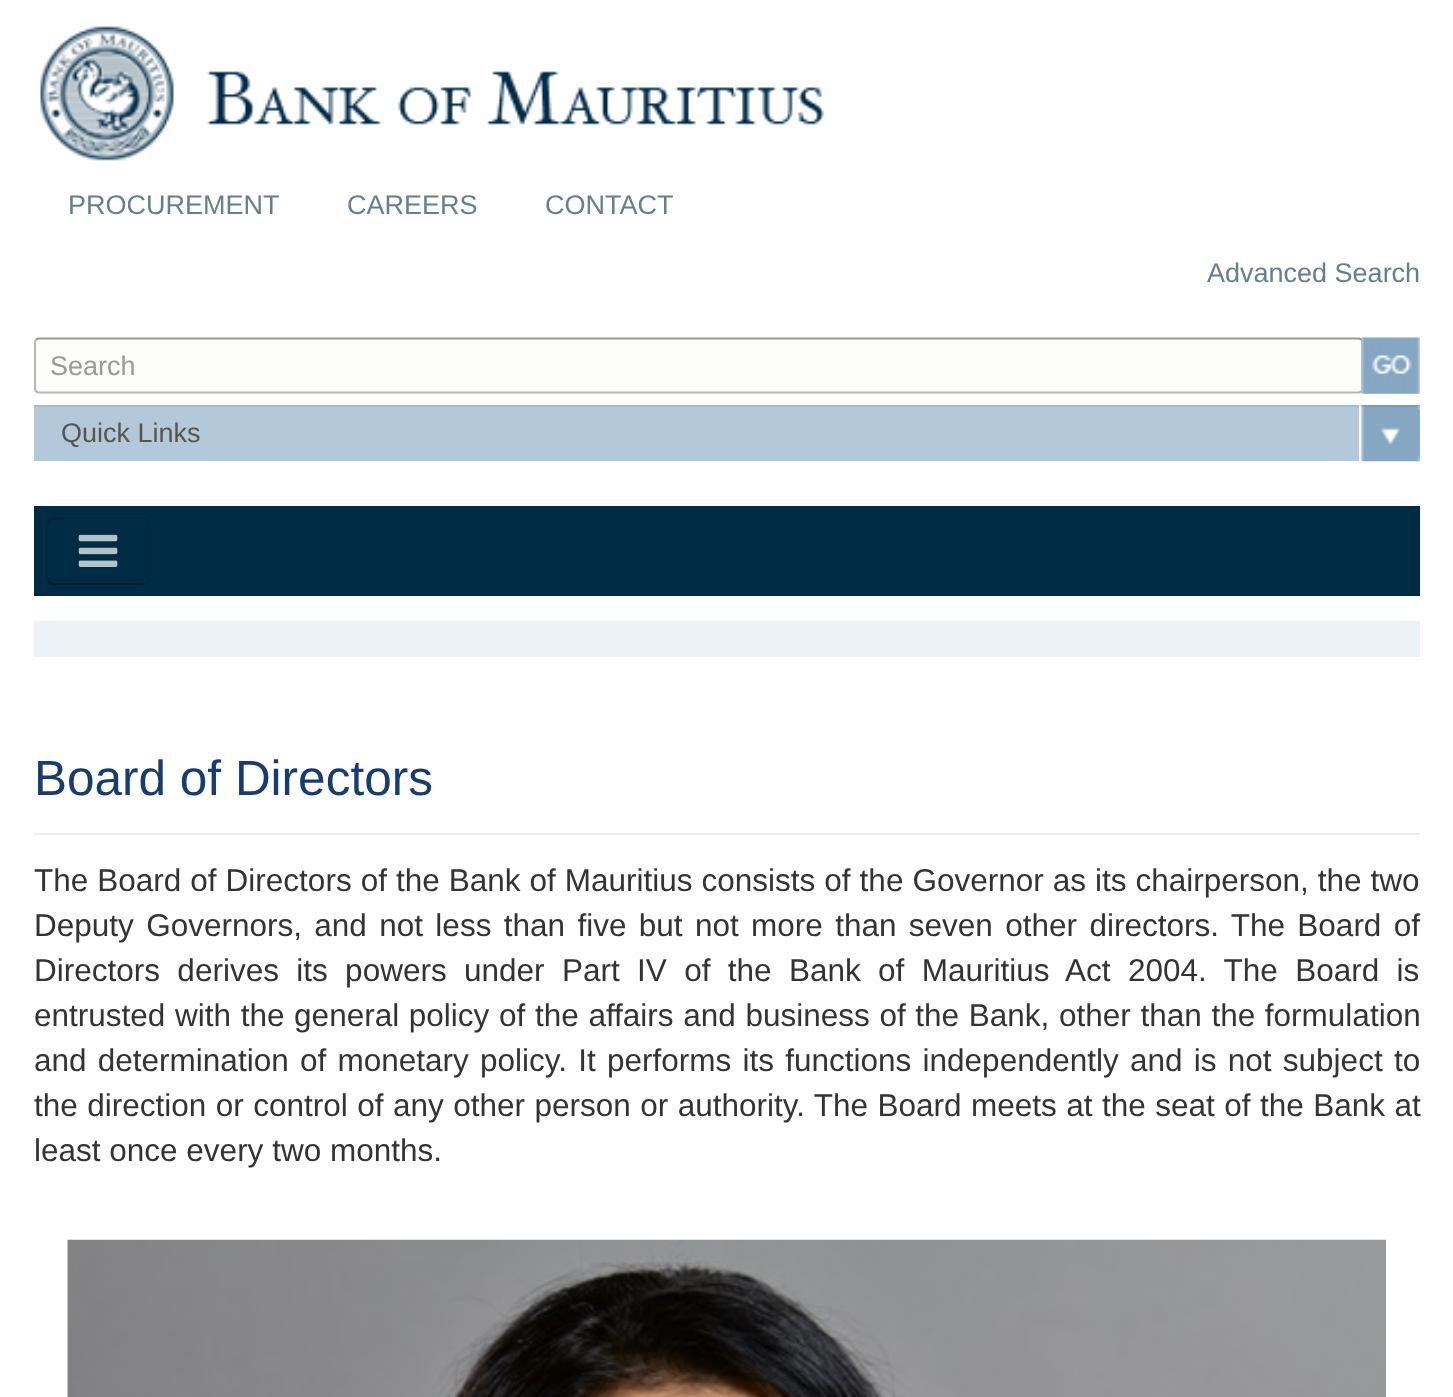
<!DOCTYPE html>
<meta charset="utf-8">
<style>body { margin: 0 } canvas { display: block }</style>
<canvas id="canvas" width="1453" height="1397"></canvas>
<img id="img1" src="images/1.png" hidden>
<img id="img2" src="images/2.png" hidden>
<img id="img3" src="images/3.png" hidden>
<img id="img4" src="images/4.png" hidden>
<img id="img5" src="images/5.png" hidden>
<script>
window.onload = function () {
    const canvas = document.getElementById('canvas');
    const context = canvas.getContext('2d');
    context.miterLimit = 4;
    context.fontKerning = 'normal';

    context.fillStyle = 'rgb(255, 255, 255)';
    context.fillRect(0, 0, 1453, 1397);
    context.drawImage(document.getElementById('img1'), 40, 26, 785, 135);
    context.fillStyle = 'rgb(252, 252, 250)';
    context.beginPath();
    context.roundRect(34, 338, 1330, 56, 5);
    context.fill();
    context.beginPath();
    context.moveTo(36, 339.5);
    context.lineTo(38, 338.5);
    context.lineTo(1359, 338.5);
    context.lineTo(1361.5, 339.5);
    context.strokeStyle = 'rgb(153, 153, 153)';
    context.lineWidth = 2.2;
    context.stroke();
    context.beginPath();
    context.moveTo(1361.5, 339.5);
    context.lineTo(1362.5, 341.5);
    context.lineTo(1362.5, 389.5);
    context.lineTo(1361.5, 391.5);
    context.lineTo(1359, 392.5);
    context.lineTo(38, 392.5);
    context.lineTo(36, 391.5);
    context.lineTo(35, 389.5);
    context.lineTo(35, 341.5);
    context.lineTo(36, 339.5);
    context.strokeStyle = 'rgb(184, 184, 184)';
    context.stroke();
    context.drawImage(document.getElementById('img2'), 1361, 337, 59, 57);
    context.fillStyle = 'rgb(179, 200, 217)';
    context.fillRect(34, 405, 1386, 56);
    context.drawImage(document.getElementById('img3'), 1359, 405, 61, 57);
    context.fillStyle = 'rgba(0, 0, 0, 0.07)';
    context.fillRect(34, 405, 1386, 2);
    context.fillStyle = 'rgb(0, 43, 68)';
    context.fillRect(34, 506, 1386, 90);
    context.beginPath();
    context.moveTo(147.5, 581.5);
    context.bezierCurveTo(146, 583, 144, 584, 142, 584);
    context.lineTo(54, 584);
    context.bezierCurveTo(52, 584, 50, 583, 48.5, 581.5);
    context.strokeStyle = 'rgb(0, 32, 51)';
    context.stroke();
    context.beginPath();
    context.moveTo(48.5, 581.5);
    context.bezierCurveTo(47, 580, 46, 578, 46, 576);
    context.lineTo(46, 526.5);
    context.bezierCurveTo(46, 524.5, 47, 522.5, 48.5, 521);
    context.bezierCurveTo(50, 519.5, 52, 518.5, 54, 518.5);
    context.lineTo(142, 518.5);
    context.bezierCurveTo(144, 518.5, 146, 519.5, 147.5, 521);
    context.bezierCurveTo(149, 522.5, 149.5, 524.5, 149.5, 526.5);
    context.lineTo(149.5, 576);
    context.bezierCurveTo(149.5, 578, 149, 580, 147.5, 581.5);
    context.strokeStyle = 'rgb(0, 37, 58)';
    context.stroke();
    context.drawImage(document.getElementById('img4'), 78, 534, 40, 33);
    context.fillStyle = 'rgb(237, 242, 246)';
    context.fillRect(34, 621, 1386, 36);
    context.fillStyle = 'rgb(238, 238, 238)';
    context.fillRect(34, 833, 1386, 2);
    context.drawImage(document.getElementById('img5'), 67, 1239, 1319, 158);
    context.font = '27px Liberation Sans';
    context.fillStyle = 'rgb(103, 126, 140)';
    context.fillText('PROCUREMENT', 68, 214);
    context.fillText('CAREERS', 347, 214);
    context.fillText('CONTACT', 545, 214);
    context.fillText('Advanced Search', 1207, 282);
    context.fillStyle = 'rgb(153, 153, 153)';
    context.fillText('Search', 50, 375);
    context.fillStyle = 'rgb(85, 85, 85)';
    context.fillText('Quick Links', 61, 442);
    context.font = '49.5px Liberation Sans';
    context.fillStyle = 'rgb(24, 59, 113)';
    context.fillText('Board of Directors', 34, 795);
    context.wordSpacing = '0.25px';
    context.font = '31.5px Liberation Sans';
    context.fillStyle = 'rgb(51, 51, 51)';
    context.fillText('The Board of Directors of the Bank of Mauritius consists of the Governor as its chairperson, the two', 34, 891);
    context.wordSpacing = '3.6px';
    context.fillText('Deputy Governors, and not less than five but not more than seven other directors. The Board of', 34, 936);
    context.wordSpacing = '8.6px';
    context.fillText('Directors derives its powers under Part IV of the Bank of Mauritius Act 2004. The Board is', 34, 981);
    context.wordSpacing = '0.9px';
    context.fillText('entrusted with the general policy of the affairs and business of the Bank, other than the formulation', 34, 1026);
    context.wordSpacing = '2.5px';
    context.fillText('and determination of monetary policy. It performs its functions independently and is not subject to', 34, 1071);
    context.wordSpacing = '0.7px';
    context.fillText('the direction or control of any other person or authority. The Board meets at the seat of the Bank at', 34, 1116);
    context.wordSpacing = '0px';
    context.fillText('least once every two months.', 34, 1161);
};
</script>
